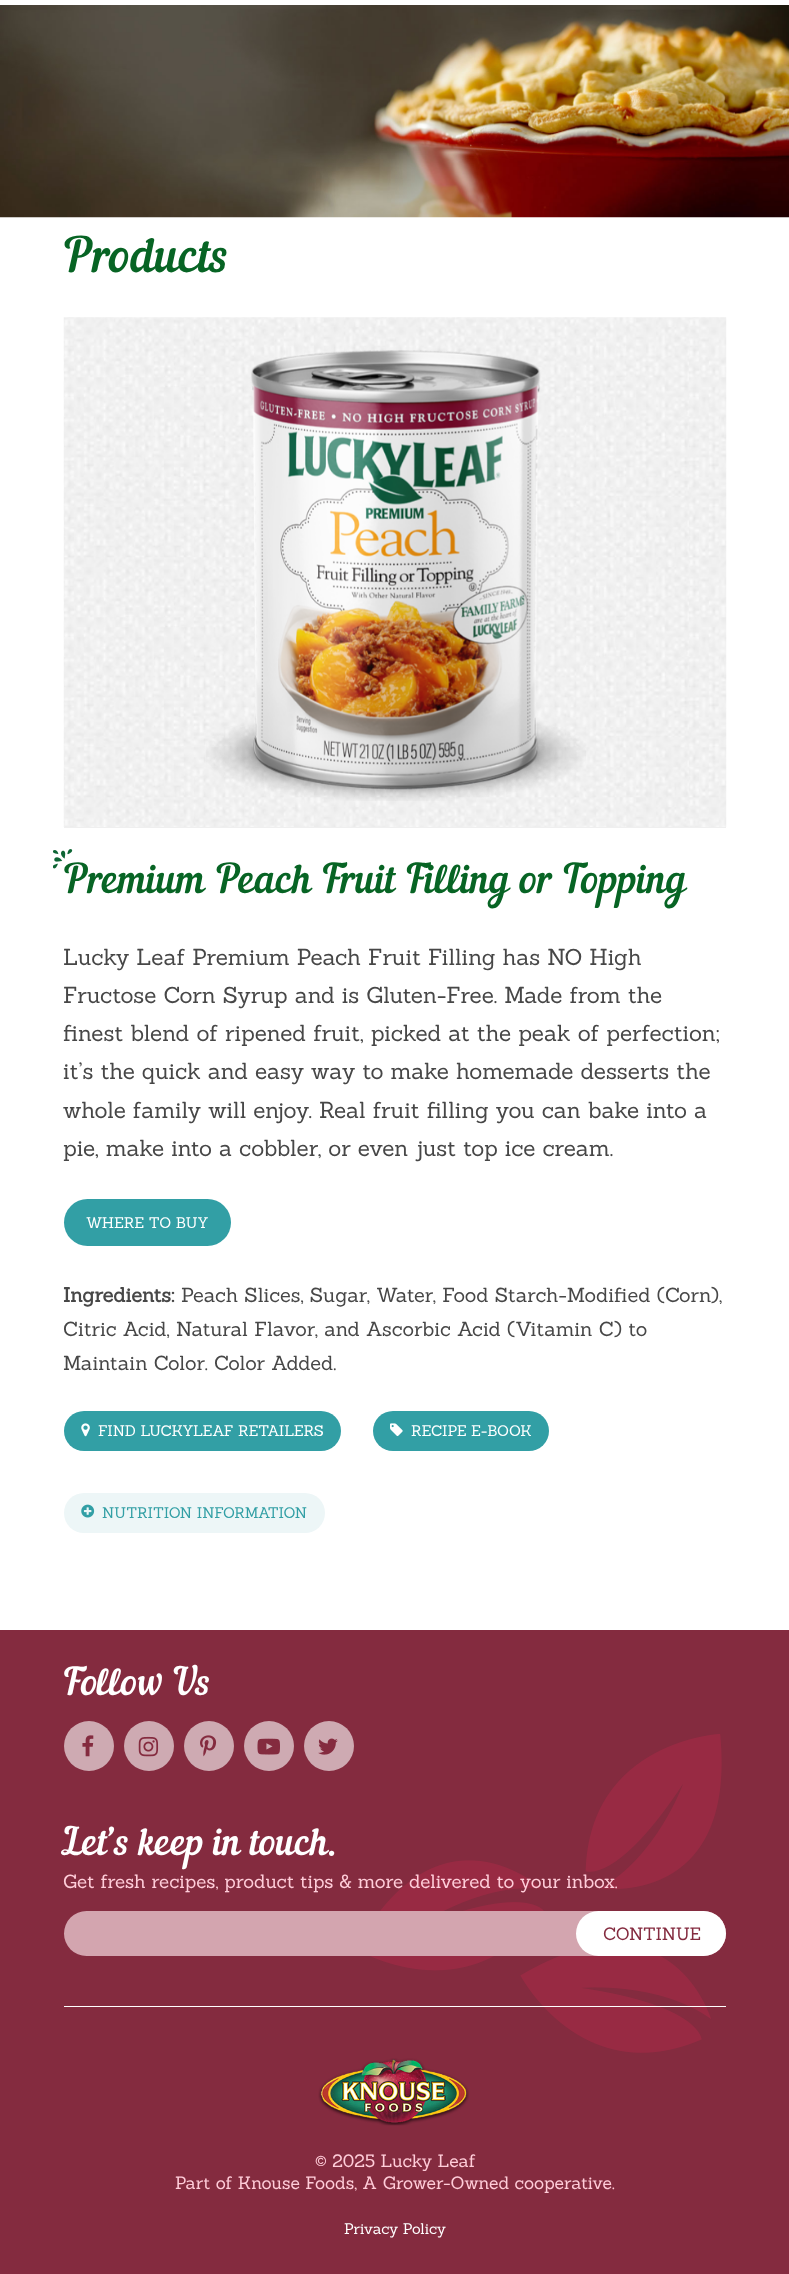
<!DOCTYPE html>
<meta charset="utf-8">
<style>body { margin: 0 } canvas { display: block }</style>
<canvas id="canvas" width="789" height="2274"></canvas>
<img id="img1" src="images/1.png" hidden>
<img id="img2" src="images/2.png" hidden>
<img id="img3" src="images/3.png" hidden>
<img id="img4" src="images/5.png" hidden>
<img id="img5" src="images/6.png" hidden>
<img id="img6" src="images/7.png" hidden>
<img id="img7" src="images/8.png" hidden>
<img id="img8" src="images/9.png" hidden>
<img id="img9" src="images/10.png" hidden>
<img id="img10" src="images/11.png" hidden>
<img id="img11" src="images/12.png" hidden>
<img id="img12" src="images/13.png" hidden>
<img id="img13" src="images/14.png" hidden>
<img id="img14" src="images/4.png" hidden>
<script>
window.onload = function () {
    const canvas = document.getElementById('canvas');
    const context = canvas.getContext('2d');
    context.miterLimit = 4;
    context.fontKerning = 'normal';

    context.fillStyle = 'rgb(255, 255, 255)';
    context.fillRect(0, 0, 789, 2274);
    context.drawImage(document.getElementById('img1'), 0, 5, 789, 213);
    context.fillStyle = 'rgb(239, 239, 239)';
    context.fillRect(64, 827, 662, 1);
    context.drawImage(document.getElementById('img2'), 63, 317, 664, 510);
    context.drawImage(document.getElementById('img3'), 206, 350, 380, 451);
    context.fillStyle = 'rgb(50, 159, 165)';
    context.beginPath();
    context.roundRect(64, 1199, 167, 47, 23.5);
    context.fill();
    context.beginPath();
    context.roundRect(64, 1411, 277, 40, 20);
    context.fill();
    context.drawImage(document.getElementById('img4'), 81, 1423, 9, 14);
    context.beginPath();
    context.roundRect(373, 1411, 176, 40, 20);
    context.fill();
    context.drawImage(document.getElementById('img5'), 390, 1423, 13, 14);
    context.fillStyle = 'rgb(237, 246, 247)';
    context.beginPath();
    context.roundRect(64, 1493, 261, 40, 20);
    context.fill();
    context.drawImage(document.getElementById('img6'), 81, 1504, 14, 14);
    context.fillStyle = 'rgb(132, 43, 63)';
    context.fillRect(0, 1630, 789, 644);
    context.drawImage(document.getElementById('img7'), 370, 1734, 352, 319);
    context.fillStyle = 'rgb(206, 170, 178)';
    context.beginPath();
    context.arc(89, 1746, 25, 0, 2 * Math.PI);
    context.fill();
    context.drawImage(document.getElementById('img8'), 82, 1735, 12, 22);
    context.beginPath();
    context.arc(149, 1746, 25, 0, 2 * Math.PI);
    context.fill();
    context.drawImage(document.getElementById('img9'), 138, 1736, 21, 21);
    context.beginPath();
    context.arc(209, 1746, 25, 0, 2 * Math.PI);
    context.fill();
    context.drawImage(document.getElementById('img10'), 200, 1735, 17, 22);
    context.beginPath();
    context.arc(269, 1746, 25, 0, 2 * Math.PI);
    context.fill();
    context.drawImage(document.getElementById('img11'), 257, 1738, 23, 17);
    context.beginPath();
    context.arc(329, 1746, 25, 0, 2 * Math.PI);
    context.fill();
    context.drawImage(document.getElementById('img12'), 318, 1738, 20, 17);
    context.fillStyle = 'rgb(211, 165, 175)';
    context.beginPath();
    context.roundRect(64, 1911, 662, 45, 22.5);
    context.fill();
    context.fillStyle = 'rgb(255, 255, 255)';
    context.beginPath();
    context.roundRect(576, 1911, 150, 45, 22.5);
    context.fill();
    context.fillRect(64, 2006, 662, 1);
    context.drawImage(document.getElementById('img13'), 318, 2058, 151, 68);
    context.font = '47.5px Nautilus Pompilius';
    context.fillStyle = 'rgb(7, 100, 36)';
    context.fillText('Products', 63, 272);
    context.font = '40px Nautilus Pompilius';
    context.fillText('Premium Peach Fruit Filling or Topping', 63, 893);
    context.drawImage(document.getElementById('img14'), 53, 849, 20, 20);
    context.font = '22.5px Sanchez';
    context.fillStyle = 'rgb(71, 71, 71)';
    context.fillText('Lucky Leaf Premium Peach Fruit Filling has NO High', 63, 965);
    context.fillText('Fructose Corn Syrup and is Gluten-Free. Made from the', 63, 1003);
    context.fillText('finest blend of ripened fruit, picked at the peak of perfection;', 63, 1041);
    context.fillText('it’s the quick and easy way to make homemade desserts the', 63, 1079);
    context.fillText('whole family will enjoy. Real fruit filling you can bake into a', 63, 1118);
    context.fillText('pie, make into a cobbler, or even just top ice cream.', 63, 1156);
    context.font = '15px Sanchez';
    context.fillStyle = 'rgb(255, 255, 255)';
    context.fillText('WHERE TO BUY', 86, 1228);
    context.font = 'bold 20px Sanchez';
    context.fillStyle = 'rgb(71, 71, 71)';
    context.fillText('Ingredients:', 63, 1302);
    context.font = '20px Sanchez';
    context.fillText('Peach Slices, Sugar, Water, Food Starch-Modified (Corn),', 181, 1302);
    context.fillText('Citric Acid, Natural Flavor, and Ascorbic Acid (Vitamin C) to', 63, 1336);
    context.fillText('Maintain Color. Color Added.', 63, 1370);
    context.font = '15px Sanchez';
    context.fillStyle = 'rgb(255, 255, 255)';
    context.fillText('FIND LUCKYLEAF RETAILERS', 98, 1436);
    context.fillText('RECIPE E-BOOK', 411, 1436);
    context.fillStyle = 'rgb(50, 159, 165)';
    context.fillText('NUTRITION INFORMATION', 102, 1518);
    context.font = '37.5px Nautilus Pompilius';
    context.fillStyle = 'rgb(255, 255, 255)';
    context.fillText('Follow Us', 63, 1695);
    context.fillText('Let’s keep in touch.', 63, 1855);
    context.font = '18.75px Sanchez';
    context.fillStyle = 'rgb(255, 205, 217)';
    context.fillText('Get fresh recipes, product tips & more delivered to your inbox.', 63, 1888);
    context.font = '17.5px Sanchez';
    context.fillStyle = 'rgb(132, 43, 63)';
    context.fillText('CONTINUE', 603, 1940);
    context.fillStyle = 'rgb(255, 205, 217)';
    context.fillText('© 2025 Lucky Leaf', 315, 2167);
    context.fillText('Part of Knouse Foods, A Grower-Owned cooperative.', 175, 2189);
    context.font = '15px Sanchez';
    context.fillStyle = 'rgb(255, 255, 255)';
    context.fillText('Privacy Policy', 344, 2234);
};
</script>
